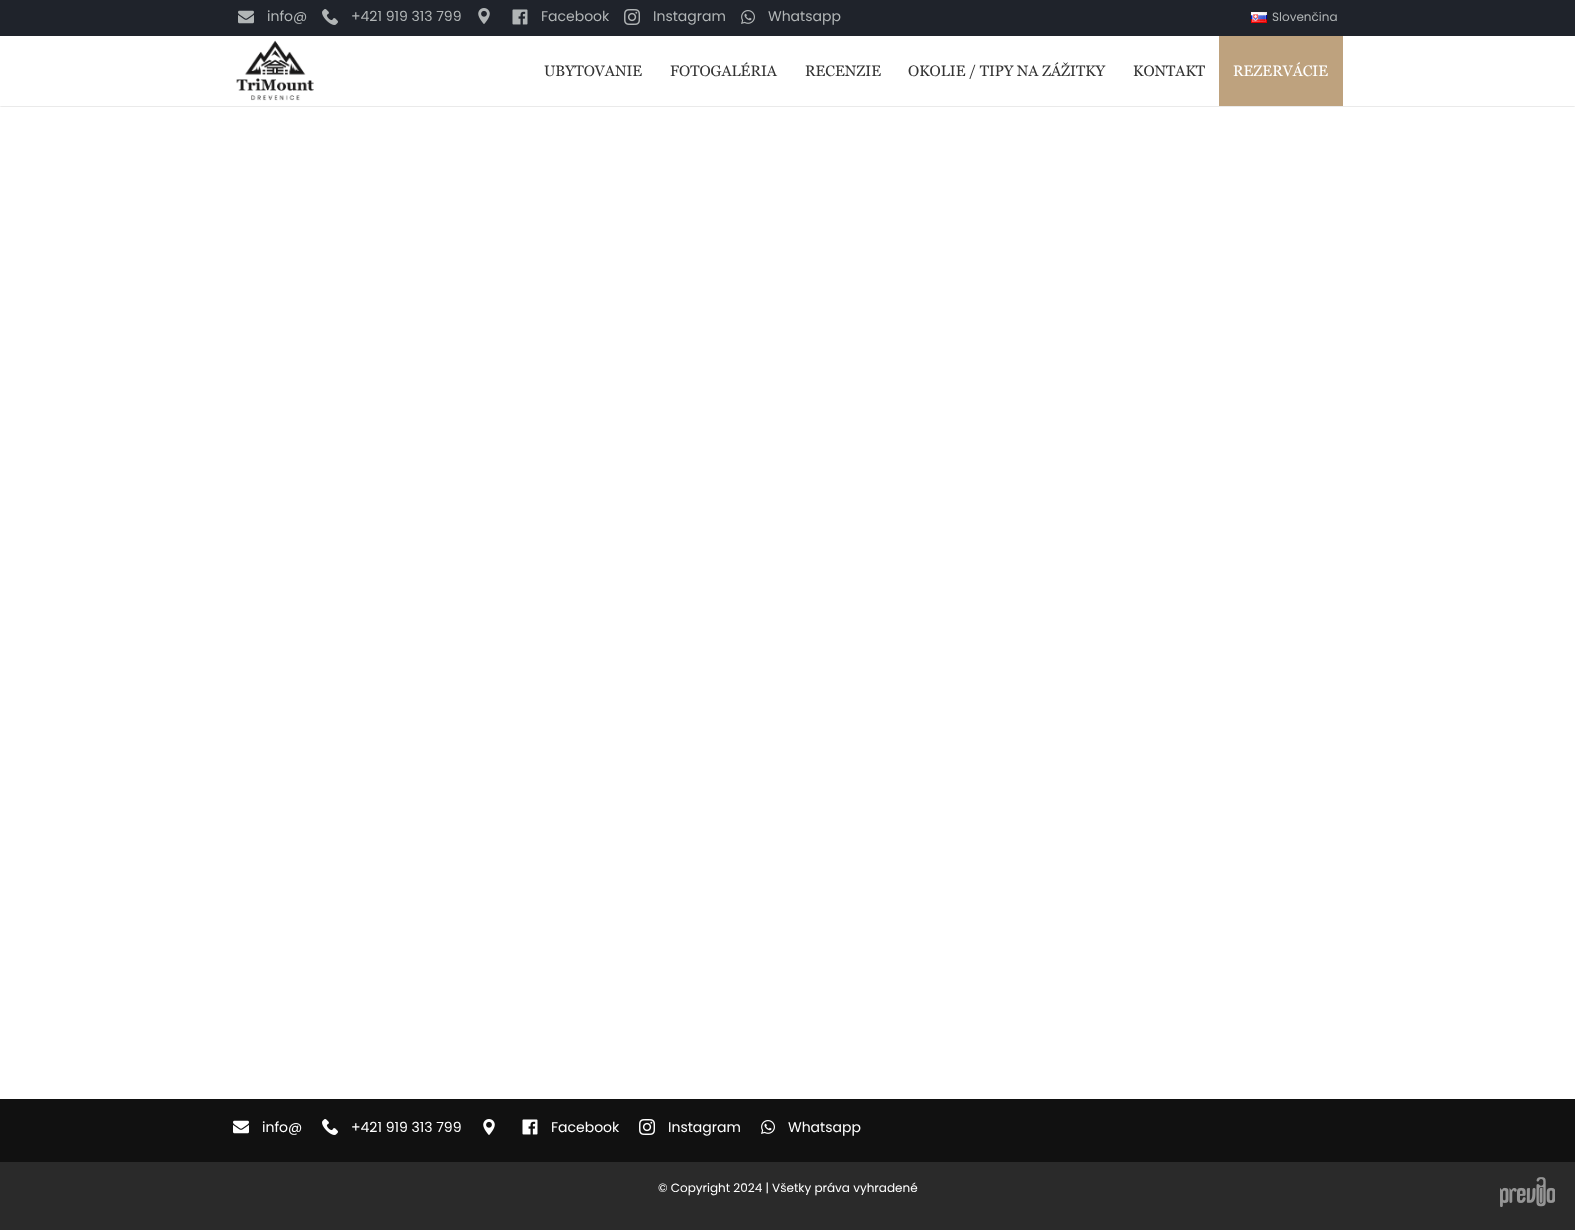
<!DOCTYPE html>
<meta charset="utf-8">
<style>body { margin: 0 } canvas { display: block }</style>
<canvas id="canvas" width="1575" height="1230"></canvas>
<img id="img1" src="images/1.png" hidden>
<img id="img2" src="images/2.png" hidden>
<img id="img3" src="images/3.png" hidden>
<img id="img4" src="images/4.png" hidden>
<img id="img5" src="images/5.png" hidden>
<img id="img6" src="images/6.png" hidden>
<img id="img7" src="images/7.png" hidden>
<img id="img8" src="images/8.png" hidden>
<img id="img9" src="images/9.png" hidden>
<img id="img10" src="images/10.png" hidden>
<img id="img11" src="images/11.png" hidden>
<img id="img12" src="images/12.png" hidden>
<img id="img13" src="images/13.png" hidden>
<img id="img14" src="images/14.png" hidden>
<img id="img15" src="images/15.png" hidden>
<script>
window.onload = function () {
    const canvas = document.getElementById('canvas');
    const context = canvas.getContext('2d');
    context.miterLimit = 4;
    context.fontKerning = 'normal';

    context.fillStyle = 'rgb(255, 255, 255)';
    context.fillRect(0, 0, 1575, 1230);
    context.save();
    context.beginPath();
    context.rect(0, 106, 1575, 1);
    context.clip();
    context.fillStyle = 'rgba(0, 0, 0, 0.25)';
    context.filter = 'blur(1px)';
    context.beginPath();
    context.rect(0, 0, 1575, 106);
    context.fill();
    context.filter = 'none';
    context.restore();
    context.fillStyle = 'rgb(31, 35, 43)';
    context.fillRect(0, 0, 1575, 36);
    context.drawImage(document.getElementById('img1'), 238, 10, 16, 14);
    context.drawImage(document.getElementById('img2'), 322, 9, 16, 16);
    context.drawImage(document.getElementById('img3'), 478, 8, 12, 16);
    context.drawImage(document.getElementById('img4'), 512, 9, 16, 16);
    context.drawImage(document.getElementById('img5'), 624, 9, 16, 16);
    context.drawImage(document.getElementById('img6'), 741, 10, 14, 14);
    context.drawImage(document.getElementById('img7'), 1251, 12, 16, 11);
    context.drawImage(document.getElementById('img8'), 236, 40, 78, 61);
    context.fillStyle = 'rgb(190, 162, 126)';
    context.fillRect(1219, 36, 124, 70);
    context.fillStyle = 'rgb(42, 42, 42)';
    context.fillRect(0, 1162, 1575, 68);
    context.fillStyle = 'rgb(17, 17, 17)';
    context.fillRect(0, 1099, 1575, 63);
    context.drawImage(document.getElementById('img9'), 233, 1120, 16, 14);
    context.drawImage(document.getElementById('img10'), 322, 1119, 16, 16);
    context.drawImage(document.getElementById('img11'), 483, 1119, 12, 16);
    context.drawImage(document.getElementById('img12'), 522, 1119, 16, 16);
    context.drawImage(document.getElementById('img13'), 639, 1119, 16, 16);
    context.drawImage(document.getElementById('img14'), 761, 1120, 14, 14);
    context.drawImage(document.getElementById('img15'), 1500, 1177, 55, 30);
    context.font = '14px Poppins';
    context.fillStyle = 'rgb(177, 181, 182)';
    context.fillText('info@', 267, 21);
    context.fillText('+421 919 313 799', 351, 21);
    context.fillText('Facebook', 541, 21);
    context.fillText('Instagram', 653, 21);
    context.fillText('Whatsapp', 768, 21);
    context.font = '12px Poppins';
    context.fillText('Slovenčina', 1272, 21);
    context.font = '15px Georgia';
    context.fillStyle = 'rgb(51, 51, 51)';
    context.fillText('UBYTOVANIE', 544, 76);
    context.fillText('FOTOGALÉRIA', 670, 76);
    context.fillText('RECENZIE', 805, 76);
    context.fillText('OKOLIE / TIPY NA ZÁŽITKY', 908, 76);
    context.fillText('KONTAKT', 1133, 76);
    context.fillStyle = 'rgb(255, 255, 255)';
    context.fillText('REZERVÁCIE', 1233, 76);
    context.font = '14px Poppins';
    context.fillText('info@', 262, 1132);
    context.fillText('+421 919 313 799', 351, 1132);
    context.fillText('Facebook', 551, 1132);
    context.fillText('Instagram', 668, 1132);
    context.fillText('Whatsapp', 788, 1132);
    context.font = '12px Poppins';
    context.fillText('© Copyright 2024 | Všetky práva vyhradené', 658, 1192);
};
</script>
